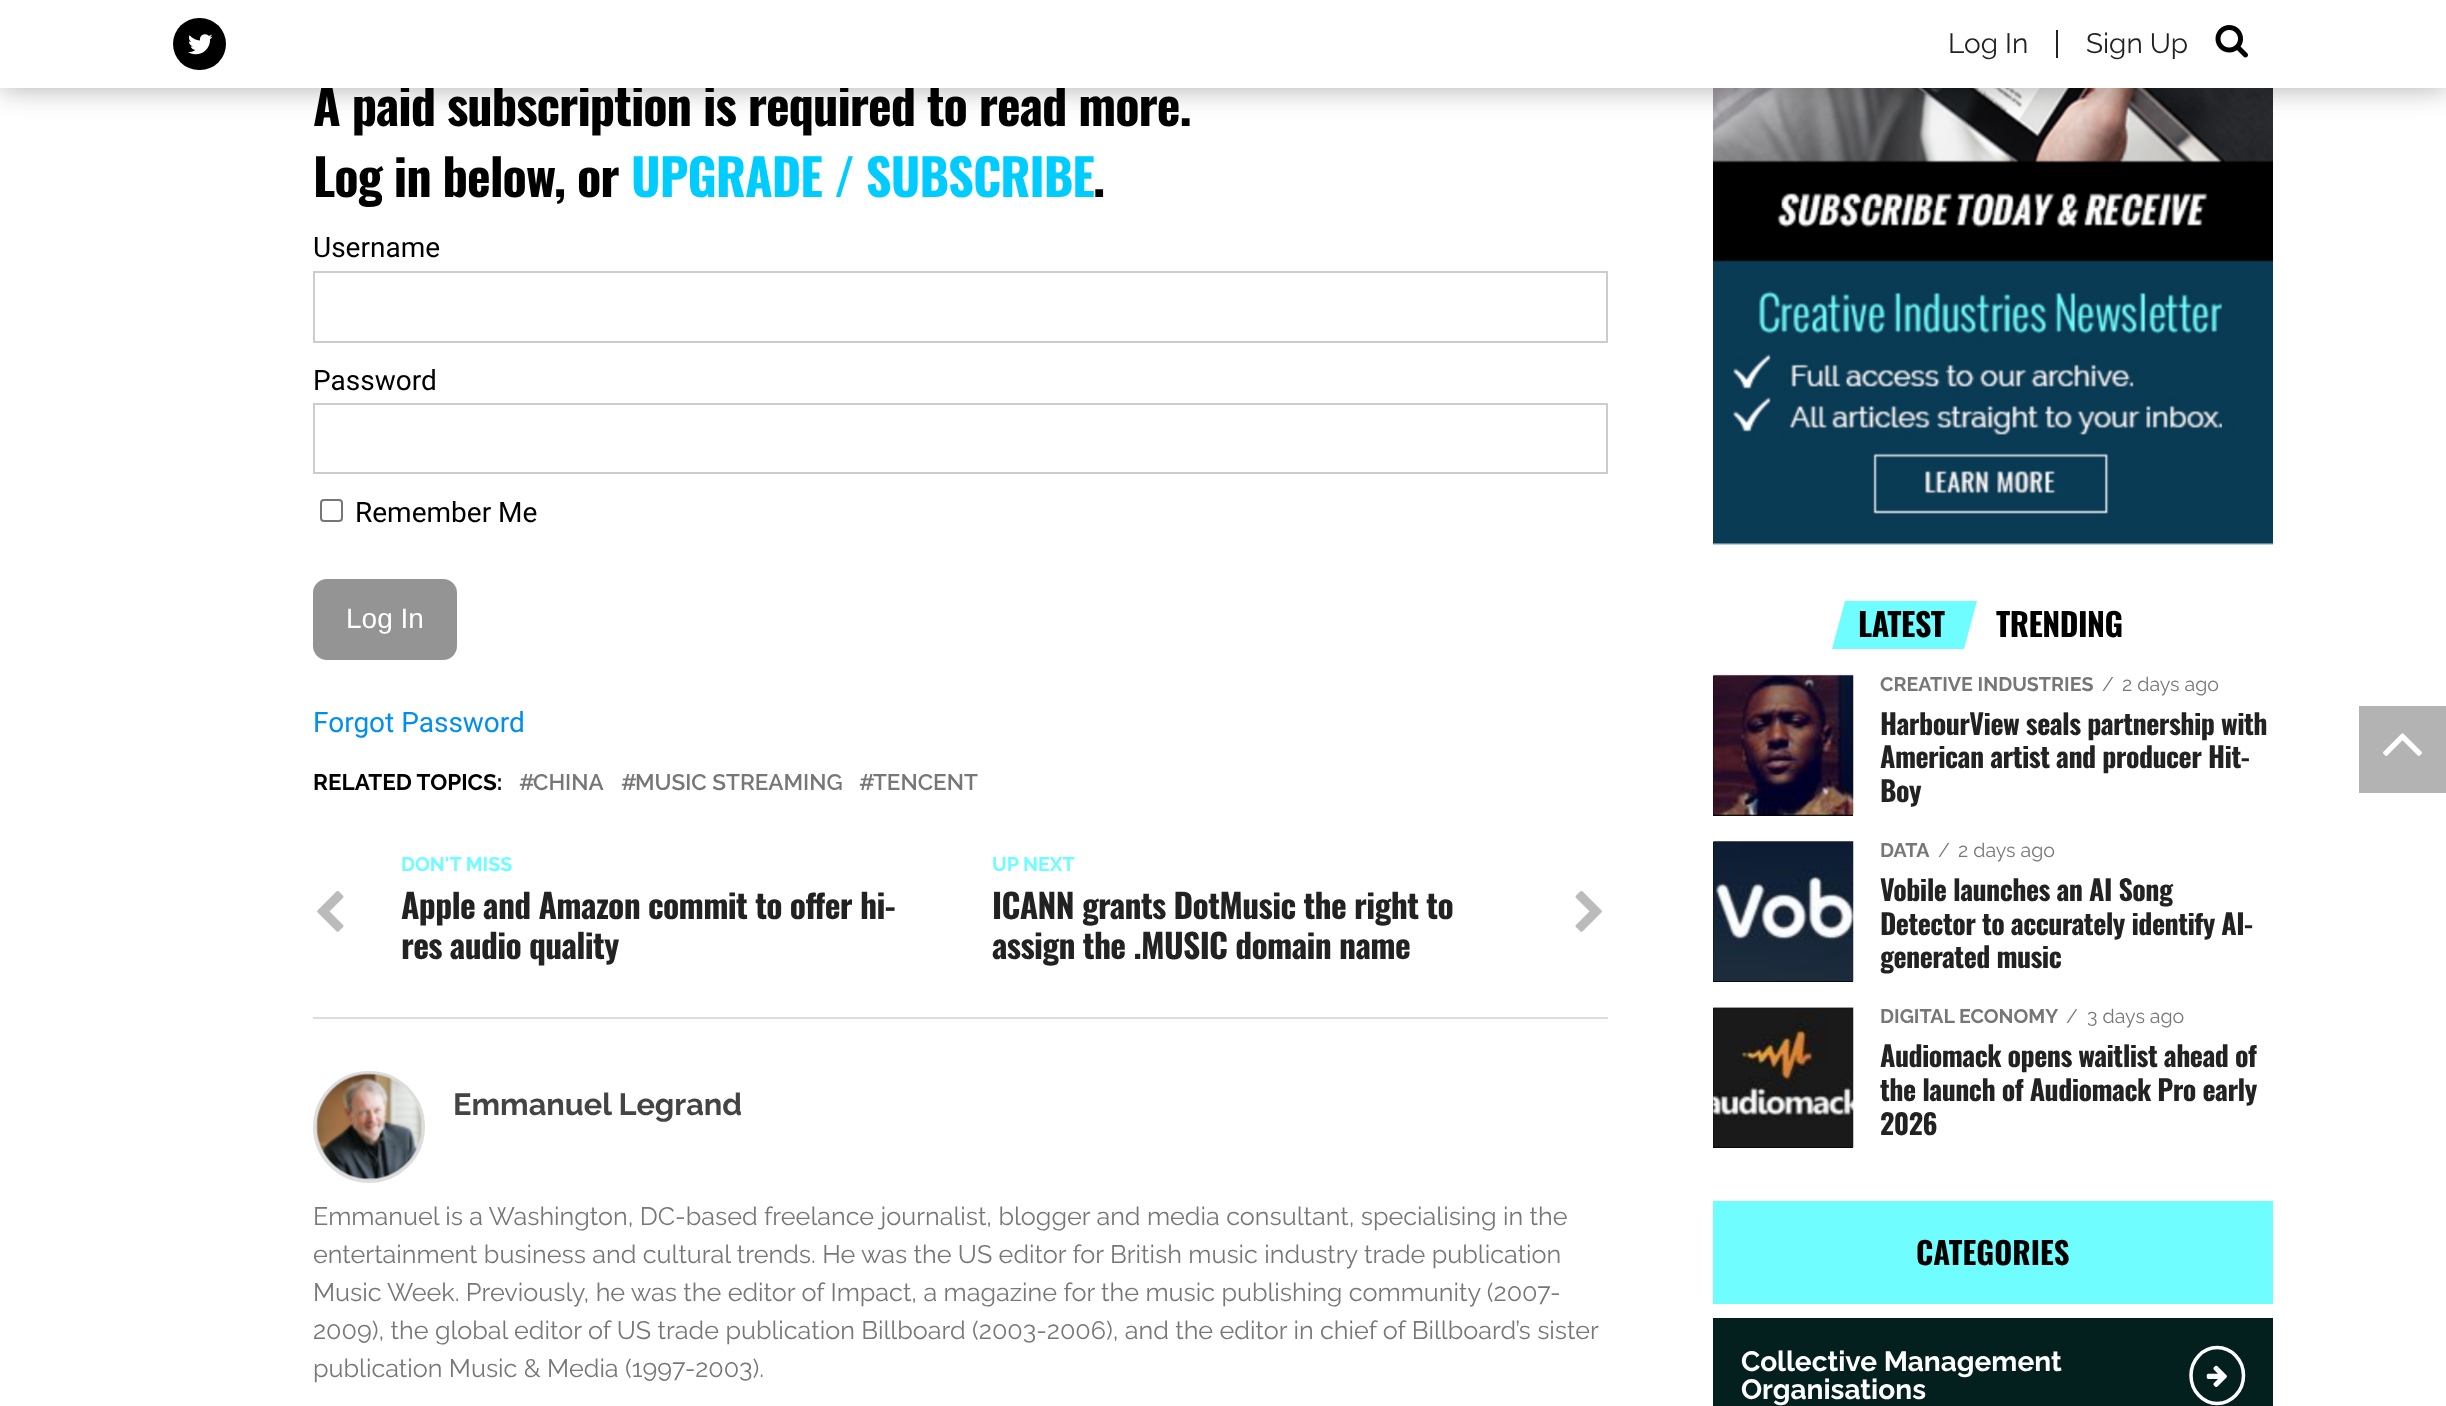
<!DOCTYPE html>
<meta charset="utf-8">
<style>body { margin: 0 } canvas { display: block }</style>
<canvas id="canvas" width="2446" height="1406"></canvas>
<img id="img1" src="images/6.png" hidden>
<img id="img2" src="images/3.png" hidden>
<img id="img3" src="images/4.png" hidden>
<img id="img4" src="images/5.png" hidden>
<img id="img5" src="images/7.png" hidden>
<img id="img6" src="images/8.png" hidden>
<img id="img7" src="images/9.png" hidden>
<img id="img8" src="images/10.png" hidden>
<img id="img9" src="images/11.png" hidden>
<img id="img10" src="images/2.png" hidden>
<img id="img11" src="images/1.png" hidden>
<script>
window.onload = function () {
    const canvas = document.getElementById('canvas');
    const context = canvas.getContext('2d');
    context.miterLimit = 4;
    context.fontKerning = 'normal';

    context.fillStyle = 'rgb(255, 255, 255)';
    context.fillRect(0, 0, 2446, 1406);
    context.drawImage(document.getElementById('img1'), 1713, 88, 560, 457);
    context.fillStyle = 'rgba(0, 0, 0, 0.3)';
    context.filter = 'blur(14px)';
    context.beginPath();
    context.rect(0, 2, 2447, 87);
    context.fill();
    context.filter = 'none';
    context.strokeStyle = 'rgb(204, 204, 204)';
    context.lineWidth = 2;
    context.strokeRect(314, 272, 1293, 70);
    context.strokeRect(314, 404, 1293, 69);
    context.beginPath();
    context.roundRect(321, 500, 21, 21, 3);
    context.strokeStyle = 'rgb(118, 118, 118)';
    context.stroke();
    context.fillStyle = 'rgb(148, 148, 148)';
    context.beginPath();
    context.roundRect(314, 580, 142, 79, 13);
    context.fill();
    context.strokeStyle = 'rgb(148, 148, 148)';
    context.stroke();
    context.fillStyle = 'rgb(221, 221, 221)';
    context.fillRect(313, 1017, 1295, 2);
    context.drawImage(document.getElementById('img2'), 317, 891, 27, 41);
    context.drawImage(document.getElementById('img3'), 1575, 891, 27, 41);
    context.beginPath();
    context.arc(369, 1127, 54, 0, 2 * Math.PI);
    context.strokeStyle = 'rgb(221, 221, 221)';
    context.lineWidth = 4;
    context.stroke();
    context.drawImage(document.getElementById('img4'), 316, 1073, 106, 107);
    context.fillStyle = 'rgb(111, 253, 255)';
    context.beginPath();
    context.moveTo(1845, 601);
    context.lineTo(1977, 601);
    context.lineTo(1964, 649);
    context.lineTo(1832, 649);
    context.closePath();
    context.fill();
    context.fillStyle = 'rgb(0, 0, 0)';
    context.fillRect(1713, 676, 140, 140);
    context.drawImage(document.getElementById('img5'), 1713, 674, 141, 142);
    context.fillRect(1713, 842, 140, 140);
    context.drawImage(document.getElementById('img6'), 1713, 841, 141, 141);
    context.fillRect(1713, 1008, 140, 140);
    context.drawImage(document.getElementById('img7'), 1713, 1007, 141, 141);
    context.fillStyle = 'rgb(111, 253, 255)';
    context.fillRect(1713, 1201, 560, 103);
    context.fillStyle = 'rgb(3, 31, 30)';
    context.fillRect(1713, 1318, 560, 88);
    context.beginPath();
    context.moveTo(2217, 1347.5);
    context.bezierCurveTo(2231.5, 1347.5, 2243.5, 1360, 2243.5, 1375.5);
    context.bezierCurveTo(2243.5, 1391, 2231.5, 1403.5, 2217, 1403.5);
    context.bezierCurveTo(2203, 1403.5, 2191, 1391, 2191, 1375.5);
    context.bezierCurveTo(2191, 1360, 2203, 1347.5, 2217, 1347.5);
    context.closePath();
    context.strokeStyle = 'rgb(255, 255, 255)';
    context.lineWidth = 3.5;
    context.stroke();
    context.drawImage(document.getElementById('img8'), 2206, 1365, 21, 22);
    context.fillStyle = 'rgb(179, 179, 179)';
    context.fillRect(2359, 706, 87, 87);
    context.drawImage(document.getElementById('img9'), 2383, 733, 39, 23);
    context.letterSpacing = '-1px';
    context.font = 'bold 50.4px Oswald';
    context.fillStyle = 'rgb(0, 0, 0)';
    context.fillText('A paid subscription is required to read more.', 313, 126);
    context.fillStyle = 'rgb(255, 255, 255)';
    context.fillRect(0, 0, 2446, 88);
    context.drawImage(document.getElementById('img10'), 2215, 25, 33, 33);
    context.letterSpacing = '0px';
    context.font = '28px Raleway';
    context.fillStyle = 'rgb(34, 34, 34)';
    context.fillText('Sign Up', 2086, 53);
    context.fillText('Log In', 1948, 53);
    context.fillRect(2056, 30, 2, 28);
    context.fillStyle = 'rgb(0, 0, 0)';
    context.beginPath();
    context.roundRect(173, 18, 53, 52, 26);
    context.fill();
    context.drawImage(document.getElementById('img11'), 188, 34, 25, 21);
    context.letterSpacing = '-1px';
    context.font = 'bold 50.4px Oswald';
    context.fillText('Log in below, or', 313, 197);
    context.fillStyle = 'rgb(0, 204, 255)';
    context.fillText('UPGRADE / SUBSCRIBE', 631, 197);
    context.fillStyle = 'rgb(0, 0, 0)';
    context.fillText('.', 1093, 197);
    context.letterSpacing = '0px';
    context.font = '28px Roboto';
    context.fillText('Username', 313, 257);
    context.fillText('Password', 313, 390);
    context.fillText('Remember Me', 355, 522);
    context.font = '28px Liberation Sans';
    context.fillStyle = 'rgb(255, 255, 255)';
    context.fillText('Log In', 346, 628);
    context.font = '28px Roboto';
    context.fillStyle = 'rgb(0, 143, 239)';
    context.fillText('Forgot Password', 313, 732);
    context.font = 'bold 22.5px Raleway';
    context.fillStyle = 'rgb(0, 0, 0)';
    context.fillText('RELATED TOPICS:', 313, 790);
    context.font = '600 22.5px Raleway';
    context.fillStyle = 'rgb(119, 119, 119)';
    context.fillText('CHINA', 533, 790);
    context.fillText('#', 519, 790);
    context.fillText('MUSIC STREAMING', 635, 790);
    context.fillText('#', 621, 790);
    context.fillText('TENCENT', 873, 790);
    context.fillText('#', 859, 790);
    context.font = 'bold 19.6px Raleway';
    context.fillStyle = 'rgb(111, 253, 255)';
    context.fillText('DON\'T MISS', 401, 871);
    context.letterSpacing = '-0.65px';
    context.font = 'bold 33.6px Oswald';
    context.fillStyle = 'rgb(34, 34, 34)';
    context.fillText('Apple and Amazon commit to offer hi-', 401, 919);
    context.fillText('res audio quality', 401, 959);
    context.letterSpacing = '0px';
    context.font = 'bold 19.6px Raleway';
    context.fillStyle = 'rgb(111, 253, 255)';
    context.fillText('UP NEXT', 992, 871);
    context.letterSpacing = '-0.65px';
    context.font = 'bold 33.6px Oswald';
    context.fillStyle = 'rgb(34, 34, 34)';
    context.fillText('ICANN grants DotMusic the right to', 992, 919);
    context.fillText('assign the .MUSIC domain name', 992, 959);
    context.letterSpacing = '0px';
    context.font = 'bold 30.75px Raleway';
    context.fillStyle = 'rgb(68, 68, 68)';
    context.fillText('Emmanuel Legrand', 453, 1115);
    context.font = '25.2px Raleway';
    context.fillStyle = 'rgb(119, 119, 119)';
    context.fillText('Emmanuel is a Washington, DC-based freelance journalist, blogger and media consultant, specialising in the', 313, 1225);
    context.fillText('entertainment business and cultural trends. He was the US editor for British music industry trade publication', 313, 1263);
    context.fillText('Music Week. Previously, he was the editor of Impact, a magazine for the music publishing community (2007-', 313, 1301);
    context.fillText('2009), the global editor of US trade publication Billboard (2003-2006), and the editor in chief of Billboard’s sister', 313, 1339);
    context.fillText('publication Music & Media (1997-2003).', 313, 1377);
    context.letterSpacing = '-0.5px';
    context.font = 'bold 32px Oswald';
    context.fillStyle = 'rgb(0, 0, 0)';
    context.fillText('LATEST', 1858, 637);
    context.fillText('TRENDING', 1996, 637);
    context.letterSpacing = '0px';
    context.font = 'bold 19.6px Raleway';
    context.fillStyle = 'rgb(119, 119, 119)';
    context.fillText('CREATIVE INDUSTRIES', 1880, 691);
    context.font = '19.6px Raleway';
    context.fillText('/', 2102, 691);
    context.fillText('2 days ago', 2122, 691);
    context.letterSpacing = '-0.55px';
    context.font = 'bold 28px Oswald';
    context.fillStyle = 'rgb(34, 34, 34)';
    context.fillText('HarbourView seals partnership with', 1880, 735);
    context.fillText('American artist and producer Hit-', 1880, 768);
    context.fillText('Boy', 1880, 802);
    context.letterSpacing = '0px';
    context.font = 'bold 19.6px Raleway';
    context.fillStyle = 'rgb(119, 119, 119)';
    context.fillText('DATA', 1880, 857);
    context.font = '19.6px Raleway';
    context.fillText('/', 1938, 857);
    context.fillText('2 days ago', 1958, 857);
    context.letterSpacing = '-0.55px';
    context.font = 'bold 28px Oswald';
    context.fillStyle = 'rgb(34, 34, 34)';
    context.fillText('Vobile launches an AI Song', 1880, 901);
    context.fillText('Detector to accurately identify AI-', 1880, 935);
    context.fillText('generated music', 1880, 968);
    context.letterSpacing = '0px';
    context.font = 'bold 19.6px Raleway';
    context.fillStyle = 'rgb(119, 119, 119)';
    context.fillText('DIGITAL ECONOMY', 1880, 1023);
    context.font = '19.6px Raleway';
    context.fillText('/', 2066, 1023);
    context.fillText('3 days ago', 2087, 1023);
    context.letterSpacing = '-0.55px';
    context.font = 'bold 28px Oswald';
    context.fillStyle = 'rgb(34, 34, 34)';
    context.fillText('Audiomack opens waitlist ahead of', 1880, 1067);
    context.fillText('the launch of Audiomack Pro early', 1880, 1101);
    context.fillText('2026', 1880, 1135);
    context.letterSpacing = '0px';
    context.font = 'bold 30.75px Oswald';
    context.fillStyle = 'rgb(0, 0, 0)';
    context.fillText('CATEGORIES', 1916, 1265);
    context.font = 'bold 28px Raleway';
    context.fillStyle = 'rgb(255, 255, 255)';
    context.fillText('Collective Management', 1741, 1371);
    context.fillText('Organisations', 1741, 1399);
};
</script>
